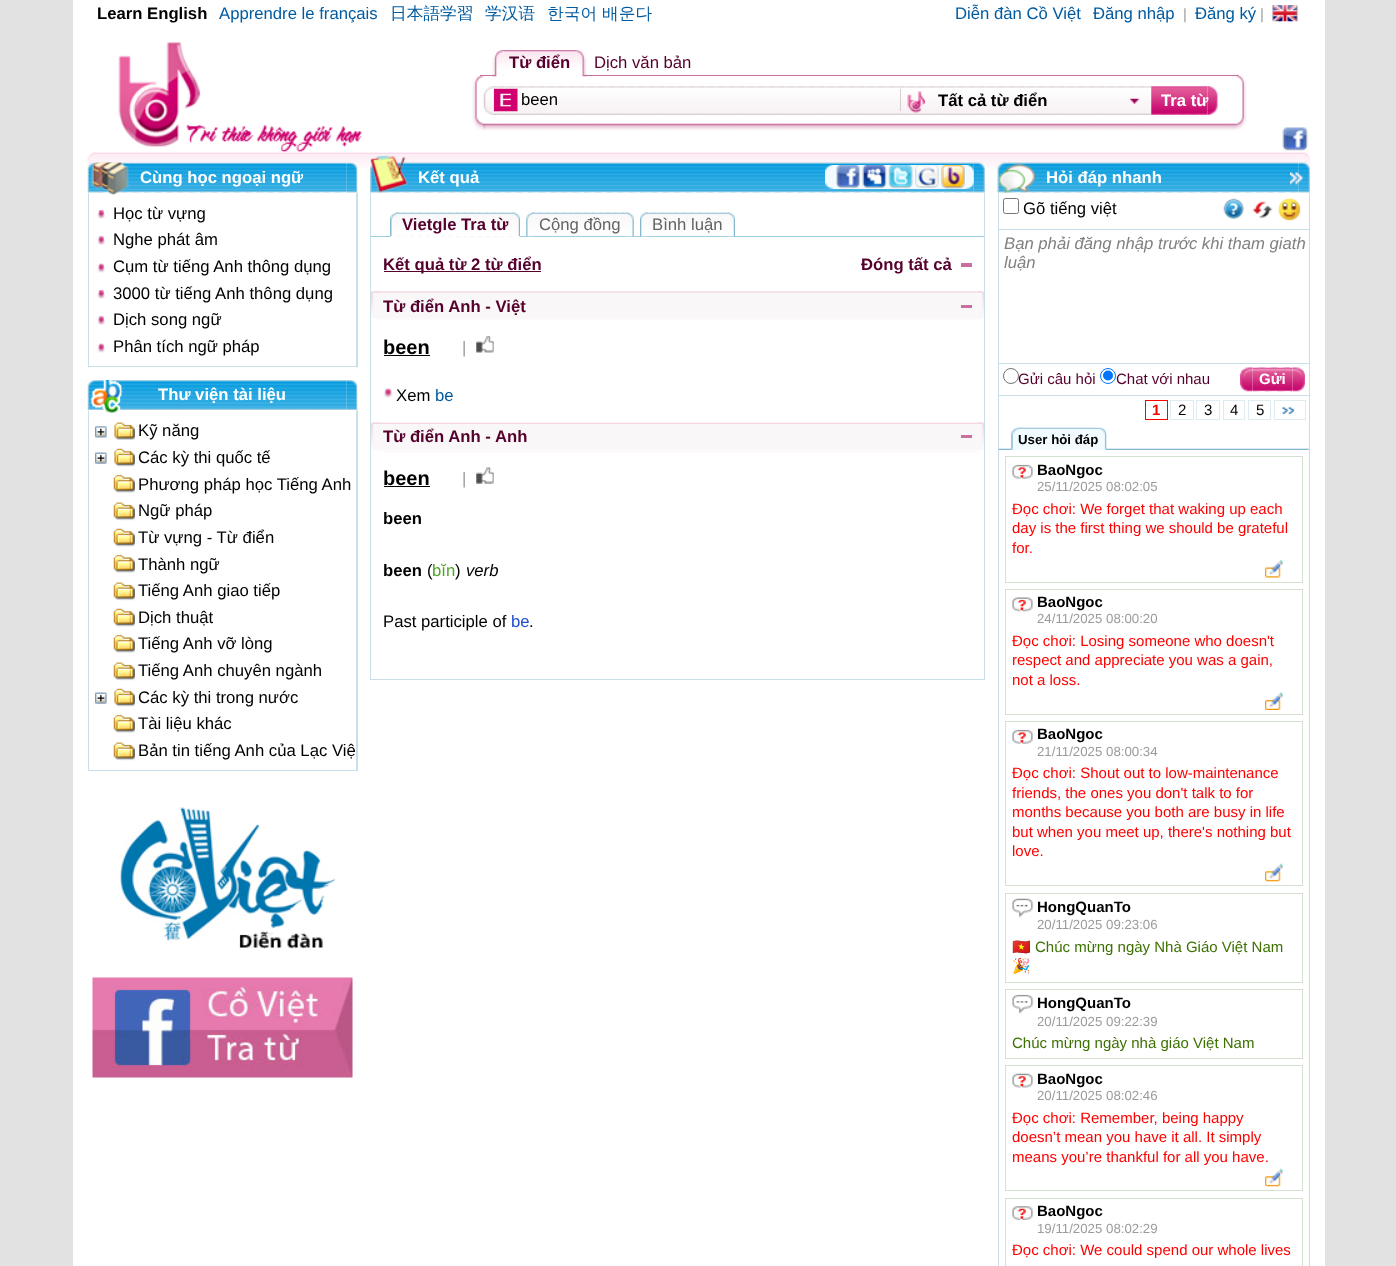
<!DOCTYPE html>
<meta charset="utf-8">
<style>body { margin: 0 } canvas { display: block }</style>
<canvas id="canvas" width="1396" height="1266"></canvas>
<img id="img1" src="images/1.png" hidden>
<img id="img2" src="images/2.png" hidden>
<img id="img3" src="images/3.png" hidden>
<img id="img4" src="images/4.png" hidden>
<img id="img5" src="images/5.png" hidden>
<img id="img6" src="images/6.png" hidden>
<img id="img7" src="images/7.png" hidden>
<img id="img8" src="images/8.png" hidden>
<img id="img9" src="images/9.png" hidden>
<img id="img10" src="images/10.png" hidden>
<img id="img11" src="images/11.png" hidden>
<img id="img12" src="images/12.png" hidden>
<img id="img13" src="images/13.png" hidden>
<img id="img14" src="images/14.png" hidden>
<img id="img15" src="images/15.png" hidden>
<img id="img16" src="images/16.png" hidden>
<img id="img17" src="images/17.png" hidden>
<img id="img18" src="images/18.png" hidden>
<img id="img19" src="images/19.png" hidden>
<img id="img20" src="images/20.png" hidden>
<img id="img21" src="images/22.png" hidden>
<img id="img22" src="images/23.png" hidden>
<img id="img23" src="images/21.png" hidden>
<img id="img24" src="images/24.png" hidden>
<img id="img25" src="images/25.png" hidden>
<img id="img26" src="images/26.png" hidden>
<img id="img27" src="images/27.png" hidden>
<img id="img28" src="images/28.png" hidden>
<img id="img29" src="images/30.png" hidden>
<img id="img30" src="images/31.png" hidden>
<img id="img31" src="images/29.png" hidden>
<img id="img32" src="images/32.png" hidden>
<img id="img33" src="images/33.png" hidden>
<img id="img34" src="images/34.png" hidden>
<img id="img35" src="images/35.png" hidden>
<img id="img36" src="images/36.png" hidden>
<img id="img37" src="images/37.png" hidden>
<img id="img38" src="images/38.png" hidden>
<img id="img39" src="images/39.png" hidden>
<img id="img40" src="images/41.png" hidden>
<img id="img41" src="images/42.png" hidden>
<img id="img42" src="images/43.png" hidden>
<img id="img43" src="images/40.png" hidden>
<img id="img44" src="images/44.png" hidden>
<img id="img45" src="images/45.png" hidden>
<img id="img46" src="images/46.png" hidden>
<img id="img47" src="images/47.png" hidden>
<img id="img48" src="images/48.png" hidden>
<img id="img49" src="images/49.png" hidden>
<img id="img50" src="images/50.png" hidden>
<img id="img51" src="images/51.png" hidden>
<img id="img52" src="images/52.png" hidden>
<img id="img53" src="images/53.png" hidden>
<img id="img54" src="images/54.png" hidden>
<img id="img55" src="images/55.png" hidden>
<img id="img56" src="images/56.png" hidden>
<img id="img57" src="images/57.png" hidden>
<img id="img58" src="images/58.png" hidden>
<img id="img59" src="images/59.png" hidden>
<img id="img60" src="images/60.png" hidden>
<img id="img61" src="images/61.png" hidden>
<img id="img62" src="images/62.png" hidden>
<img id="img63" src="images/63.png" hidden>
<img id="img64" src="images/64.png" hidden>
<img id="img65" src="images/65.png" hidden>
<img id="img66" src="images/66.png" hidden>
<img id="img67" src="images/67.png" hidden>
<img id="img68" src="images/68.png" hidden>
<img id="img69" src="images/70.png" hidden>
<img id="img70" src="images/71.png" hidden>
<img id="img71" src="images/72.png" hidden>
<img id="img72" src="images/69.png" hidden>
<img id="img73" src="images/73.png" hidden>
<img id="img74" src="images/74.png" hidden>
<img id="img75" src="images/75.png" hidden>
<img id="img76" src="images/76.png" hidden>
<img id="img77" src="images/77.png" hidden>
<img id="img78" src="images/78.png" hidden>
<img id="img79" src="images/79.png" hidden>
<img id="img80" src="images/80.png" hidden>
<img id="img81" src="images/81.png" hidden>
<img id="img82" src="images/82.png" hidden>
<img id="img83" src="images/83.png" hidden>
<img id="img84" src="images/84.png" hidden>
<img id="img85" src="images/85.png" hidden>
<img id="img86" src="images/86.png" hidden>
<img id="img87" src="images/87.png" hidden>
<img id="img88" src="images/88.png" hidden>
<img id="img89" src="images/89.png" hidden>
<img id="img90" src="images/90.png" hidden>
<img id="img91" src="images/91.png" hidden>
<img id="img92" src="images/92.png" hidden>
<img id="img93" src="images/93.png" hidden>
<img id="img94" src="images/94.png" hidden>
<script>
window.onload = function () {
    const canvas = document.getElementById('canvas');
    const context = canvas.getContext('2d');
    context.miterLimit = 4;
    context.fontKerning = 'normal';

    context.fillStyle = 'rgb(226, 226, 226)';
    context.fillRect(0, 0, 1396, 1266);
    context.fillStyle = 'rgb(255, 255, 255)';
    context.fillRect(73, 0, 1252, 1266);
    context.drawImage(document.getElementById('img1'), 1272, 5, 26, 17);
    context.drawImage(document.getElementById('img2'), 118, 42, 244, 110);
    context.fillStyle = 'rgb(200, 111, 157)';
    context.fillRect(480, 75, 759, 1);
    context.drawImage(document.getElementById('img3'), 492, 50, 12, 27);
    context.drawImage(document.getElementById('img4'), 503, 50, 74, 26);
    context.drawImage(document.getElementById('img5'), 576, 50, 12, 27);
    context.drawImage(document.getElementById('img6'), 472, 76, 13, 55);
    context.drawImage(document.getElementById('img7'), 1236, 76, 11, 54);
    context.drawImage(document.getElementById('img8'), 483, 123, 754, 8);
    context.drawImage(document.getElementById('img9'), 483, 86, 12, 29);
    context.drawImage(document.getElementById('img10'), 494, 86, 658, 29);
    context.drawImage(document.getElementById('img11'), 493, 88, 25, 24);
    context.fillStyle = 'rgb(215, 204, 208)';
    context.fillRect(900, 89, 1, 22);
    context.drawImage(document.getElementById('img12'), 907, 91, 18, 22);
    context.drawImage(document.getElementById('img13'), 1130, 98, 9, 6);
    context.drawImage(document.getElementById('img14'), 1207, 86, 11, 29);
    context.drawImage(document.getElementById('img15'), 1151, 86, 57, 29);
    context.drawImage(document.getElementById('img16'), 1282, 127, 26, 24);
    context.drawImage(document.getElementById('img17'), 87, 152, 10, 15);
    context.drawImage(document.getElementById('img18'), 1302, 152, 8, 15);
    context.drawImage(document.getElementById('img19'), 95, 152, 1208, 16);
    context.fillStyle = 'rgb(200, 222, 233)';
    context.beginPath();
    context.moveTo(358, 192);
    context.lineTo(358, 368);
    context.lineTo(356, 366);
    context.lineTo(356, 194);
    context.closePath();
    context.fill();
    context.fillRect(88, 366, 270, 1);
    context.beginPath();
    context.moveTo(88, 368);
    context.lineTo(88, 192);
    context.lineTo(89, 194);
    context.lineTo(89, 366);
    context.closePath();
    context.fill();
    context.drawImage(document.getElementById('img20'), 87, 162, 13, 31);
    context.drawImage(document.getElementById('img21'), 346, 162, 12, 31);
    context.drawImage(document.getElementById('img22'), 98, 162, 249, 31);
    context.drawImage(document.getElementById('img23'), 91, 162, 38, 34);
    context.drawImage(document.getElementById('img24'), 97, 210, 8, 9);
    context.drawImage(document.getElementById('img25'), 97, 236, 8, 9);
    context.drawImage(document.getElementById('img26'), 97, 263, 8, 10);
    context.drawImage(document.getElementById('img27'), 97, 290, 8, 9);
    context.drawImage(document.getElementById('img25'), 97, 316, 8, 9);
    context.drawImage(document.getElementById('img26'), 97, 343, 8, 10);
    context.drawImage(document.getElementById('img28'), 87, 380, 12, 30);
    context.drawImage(document.getElementById('img29'), 346, 380, 12, 30);
    context.drawImage(document.getElementById('img30'), 99, 380, 248, 30);
    context.drawImage(document.getElementById('img31'), 91, 380, 32, 33);
    context.beginPath();
    context.moveTo(358, 410);
    context.lineTo(358, 771);
    context.lineTo(356, 770);
    context.lineTo(356, 411);
    context.closePath();
    context.fill();
    context.fillRect(88, 770, 270, 1);
    context.beginPath();
    context.moveTo(88, 771);
    context.lineTo(88, 410);
    context.lineTo(89, 411);
    context.lineTo(89, 770);
    context.closePath();
    context.fill();
    context.drawImage(document.getElementById('img32'), 95, 422, 40, 18);
    context.drawImage(document.getElementById('img33'), 95, 448, 40, 19);
    context.drawImage(document.getElementById('img34'), 113, 474, 22, 19);
    context.drawImage(document.getElementById('img35'), 113, 502, 22, 19);
    context.drawImage(document.getElementById('img36'), 113, 528, 22, 19);
    context.drawImage(document.getElementById('img34'), 113, 554, 22, 19);
    context.drawImage(document.getElementById('img37'), 113, 582, 22, 19);
    context.drawImage(document.getElementById('img36'), 113, 608, 22, 19);
    context.drawImage(document.getElementById('img34'), 113, 634, 22, 19);
    context.drawImage(document.getElementById('img35'), 113, 662, 22, 19);
    context.drawImage(document.getElementById('img33'), 95, 688, 40, 19);
    context.drawImage(document.getElementById('img34'), 113, 714, 22, 19);
    context.drawImage(document.getElementById('img35'), 113, 742, 22, 19);
    context.drawImage(document.getElementById('img38'), 119, 807, 217, 142);
    context.drawImage(document.getElementById('img39'), 92, 977, 261, 101);
    context.drawImage(document.getElementById('img40'), 370, 163, 13, 30);
    context.drawImage(document.getElementById('img41'), 973, 162, 12, 31);
    context.drawImage(document.getElementById('img42'), 381, 162, 593, 31);
    context.beginPath();
    context.moveTo(985, 192);
    context.lineTo(985, 680);
    context.lineTo(984, 679);
    context.lineTo(984, 194);
    context.closePath();
    context.fill();
    context.fillRect(370, 679, 615, 1);
    context.beginPath();
    context.moveTo(370, 680);
    context.lineTo(370, 192);
    context.lineTo(371, 194);
    context.lineTo(371, 679);
    context.closePath();
    context.fill();
    context.drawImage(document.getElementById('img43'), 370, 155, 38, 38);
    context.drawImage(document.getElementById('img44'), 825, 165, 8, 24);
    context.drawImage(document.getElementById('img45'), 965, 165, 9, 24);
    context.fillStyle = 'rgb(242, 251, 255)';
    context.fillRect(833, 165, 132, 24);
    context.drawImage(document.getElementById('img46'), 836, 165, 24, 24);
    context.drawImage(document.getElementById('img47'), 862, 165, 25, 24);
    context.drawImage(document.getElementById('img48'), 888, 165, 25, 24);
    context.drawImage(document.getElementById('img49'), 915, 165, 24, 23);
    context.drawImage(document.getElementById('img50'), 941, 165, 24, 24);
    context.fillStyle = 'rgb(155, 203, 223)';
    context.fillRect(371, 236, 613, 1);
    context.fillStyle = 'rgb(255, 255, 255)';
    context.fillRect(390, 236, 130, 1);
    context.drawImage(document.getElementById('img51'), 390, 212, 9, 25);
    context.drawImage(document.getElementById('img52'), 512, 212, 8, 25);
    context.drawImage(document.getElementById('img53'), 396, 212, 118, 25);
    context.drawImage(document.getElementById('img54'), 526, 212, 8, 25);
    context.drawImage(document.getElementById('img55'), 626, 212, 8, 25);
    context.drawImage(document.getElementById('img56'), 532, 212, 96, 25);
    context.drawImage(document.getElementById('img57'), 640, 212, 8, 25);
    context.drawImage(document.getElementById('img58'), 727, 212, 8, 25);
    context.drawImage(document.getElementById('img59'), 646, 212, 83, 25);
    context.fillStyle = 'rgb(84, 0, 45)';
    context.fillRect(384, 271, 157, 1);
    context.fillStyle = 'rgb(201, 110, 158)';
    context.fillRect(961, 263, 11, 4);
    context.drawImage(document.getElementById('img60'), 371, 291, 8, 28);
    context.drawImage(document.getElementById('img61'), 977, 291, 7, 28);
    context.drawImage(document.getElementById('img62'), 378, 291, 600, 29);
    context.fillRect(961, 305, 11, 3);
    context.fillStyle = 'rgb(0, 0, 0)';
    context.fillRect(384, 355, 46, 1);
    context.drawImage(document.getElementById('img63'), 476, 336, 18, 17);
    context.drawImage(document.getElementById('img64'), 383, 388, 10, 10);
    context.drawImage(document.getElementById('img65'), 371, 422, 8, 28);
    context.drawImage(document.getElementById('img66'), 977, 422, 7, 28);
    context.drawImage(document.getElementById('img67'), 378, 422, 600, 30);
    context.fillStyle = 'rgb(201, 110, 158)';
    context.fillRect(961, 435, 11, 3);
    context.fillStyle = 'rgb(0, 0, 0)';
    context.fillRect(384, 486, 46, 1);
    context.drawImage(document.getElementById('img68'), 476, 467, 18, 17);
    context.drawImage(document.getElementById('img69'), 997, 162, 13, 31);
    context.drawImage(document.getElementById('img70'), 1298, 162, 12, 31);
    context.drawImage(document.getElementById('img71'), 1008, 162, 291, 31);
    context.fillStyle = 'rgb(200, 222, 233)';
    context.beginPath();
    context.moveTo(998, 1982);
    context.lineTo(998, 192);
    context.lineTo(999, 194);
    context.lineTo(999, 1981);
    context.closePath();
    context.fill();
    context.drawImage(document.getElementById('img72'), 998, 163, 37, 30);
    context.beginPath();
    context.moveTo(1310, 192);
    context.lineTo(1310, 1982);
    context.lineTo(1309, 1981);
    context.lineTo(1309, 194);
    context.closePath();
    context.fill();
    context.beginPath();
    context.roundRect(1003.5, 198.5, 15, 15, 2);
    context.strokeStyle = 'rgb(118, 118, 118)';
    context.stroke();
    context.drawImage(document.getElementById('img73'), 1223, 198, 21, 21);
    context.drawImage(document.getElementById('img74'), 1252, 201, 21, 18);
    context.drawImage(document.getElementById('img75'), 1278, 198, 23, 23);
    context.fillRect(999, 229, 310, 1);
    context.fillRect(999, 363, 310, 1);
    context.fillRect(999, 395, 310, 1);
    context.beginPath();
    context.arc(1011, 376, 7.5, 0, 2 * Math.PI);
    context.stroke();
    context.beginPath();
    context.arc(1108, 376, 7.5, 0, 2 * Math.PI);
    context.strokeStyle = 'rgb(0, 117, 255)';
    context.stroke();
    context.fillStyle = 'rgb(0, 117, 255)';
    context.beginPath();
    context.arc(1108, 375.5, 5, 0, 2 * Math.PI);
    context.fill();
    context.drawImage(document.getElementById('img76'), 1240, 367, 13, 25);
    context.drawImage(document.getElementById('img77'), 1292, 367, 13, 25);
    context.drawImage(document.getElementById('img78'), 1252, 367, 41, 25);
    context.strokeStyle = 'rgb(255, 0, 0)';
    context.strokeRect(1145.5, 400.5, 22, 19);
    context.strokeStyle = 'rgb(222, 235, 241)';
    context.strokeRect(1170.5, 400.5, 23, 19);
    context.strokeRect(1196.5, 400.5, 23, 19);
    context.strokeRect(1223.5, 400.5, 21, 19);
    context.strokeRect(1248.5, 400.5, 22, 19);
    context.strokeRect(1274.5, 400.5, 31, 19);
    context.drawImage(document.getElementById('img79'), 1282, 406, 13, 9);
    context.drawImage(document.getElementById('img80'), 998, 448, 311, 2);
    context.drawImage(document.getElementById('img81'), 1011, 427, 9, 23);
    context.drawImage(document.getElementById('img82'), 1098, 427, 9, 23);
    context.drawImage(document.getElementById('img83'), 1018, 427, 81, 23);
    context.strokeStyle = 'rgb(212, 224, 208)';
    context.strokeRect(1005.5, 456.5, 297, 126);
    context.drawImage(document.getElementById('img84'), 1012, 464, 22, 15);
    context.drawImage(document.getElementById('img85'), 1265, 559, 18, 19);
    context.strokeRect(1005.5, 589.5, 297, 125);
    context.drawImage(document.getElementById('img86'), 1012, 597, 22, 15);
    context.drawImage(document.getElementById('img87'), 1265, 692, 18, 18);
    context.strokeRect(1005.5, 721.5, 297, 164);
    context.drawImage(document.getElementById('img84'), 1012, 729, 22, 15);
    context.drawImage(document.getElementById('img88'), 1265, 863, 18, 19);
    context.strokeRect(1005.5, 893.5, 297, 89);
    context.drawImage(document.getElementById('img89'), 1012, 898, 22, 20);
    context.strokeRect(1005.5, 989.5, 297, 69);
    context.drawImage(document.getElementById('img90'), 1012, 994, 22, 20);
    context.strokeRect(1005.5, 1065.5, 297, 125);
    context.drawImage(document.getElementById('img91'), 1012, 1073, 22, 15);
    context.drawImage(document.getElementById('img92'), 1265, 1168, 18, 19);
    context.strokeRect(1005.5, 1198.5, 297, 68);
    context.drawImage(document.getElementById('img93'), 1012, 1206, 22, 14);
    context.drawImage(document.getElementById('img94'), 1290, 172, 13, 13);
    context.font = 'bold 16.7px Liberation Sans';
    context.fillStyle = 'rgb(0, 0, 0)';
    context.fillText('Learn English', 97, 19);
    context.font = '16.7px Liberation Sans';
    context.fillStyle = 'rgb(0, 91, 161)';
    context.fillText('Apprendre le français', 219, 19);
    context.font = '500 16.7px WenQuanYi Zen Hei';
    context.fillText('日本語学習', 390, 19);
    context.fillText('学汉语', 485, 19);
    context.fillText('한국어 배운다', 547, 19);
    context.font = '16.7px Liberation Sans';
    context.fillText('Diễn đàn Cồ Việt', 955, 19);
    context.fillText('Đăng nhập', 1093, 19);
    context.font = '15px Liberation Sans';
    context.fillStyle = 'rgb(155, 155, 155)';
    context.fillText('|', 1183, 19);
    context.font = '16.7px Liberation Sans';
    context.fillStyle = 'rgb(0, 91, 161)';
    context.fillText('Đăng ký', 1195, 19);
    context.font = '15px Liberation Sans';
    context.fillStyle = 'rgb(155, 155, 155)';
    context.fillText('|', 1260, 19);
    context.font = 'bold 16.7px Liberation Sans';
    context.fillStyle = 'rgb(86, 0, 45)';
    context.fillText('Từ điển', 509, 68);
    context.font = '16.7px Liberation Sans';
    context.fillText('Dịch văn bản', 594, 68);
    context.fillStyle = 'rgb(0, 0, 0)';
    context.fillText('been', 521, 105);
    context.font = 'bold 16.7px Liberation Sans';
    context.fillText('Tất cả từ điển', 938, 106);
    context.fillStyle = 'rgb(255, 255, 255)';
    context.fillText('Tra từ', 1161, 106);
    context.fillText('Cùng học ngoại ngữ', 140, 183);
    context.font = '16.7px Liberation Sans';
    context.fillStyle = 'rgb(0, 0, 0)';
    context.fillText('Học từ vựng', 113, 219);
    context.fillText('Nghe phát âm', 113, 245);
    context.fillText('Cụm từ tiếng Anh thông dụng', 113, 272);
    context.fillText('3000 từ tiếng Anh thông dụng', 113, 299);
    context.fillText('Dịch song ngữ', 113, 325);
    context.fillText('Phân tích ngữ pháp', 113, 352);
    context.font = 'bold 16.7px Liberation Sans';
    context.fillStyle = 'rgb(255, 255, 255)';
    context.fillText('Thư viện tài liệu', 158, 400);
    context.font = '16.7px Liberation Sans';
    context.fillStyle = 'rgb(0, 0, 0)';
    context.fillText('Kỹ năng', 138, 436);
    context.fillText('Các kỳ thi quốc tế', 138, 463);
    context.fillText('Phương pháp học Tiếng Anh', 138, 490);
    context.fillText('Ngữ pháp', 138, 516);
    context.fillText('Từ vựng - Từ điển', 138, 543);
    context.fillText('Thành ngữ', 138, 570);
    context.fillText('Tiếng Anh giao tiếp', 138, 596);
    context.fillText('Dịch thuật', 138, 623);
    context.fillText('Tiếng Anh vỡ lòng', 138, 649);
    context.fillText('Tiếng Anh chuyên ngành', 138, 676);
    context.fillText('Các kỳ thi trong nước', 138, 703);
    context.fillText('Tài liệu khác', 138, 729);
    context.fillText('Bản tin tiếng Anh của Lạc Việ', 138, 756);
    context.font = 'bold 16.7px Liberation Sans';
    context.fillStyle = 'rgb(255, 255, 255)';
    context.fillText('Kết quả', 418, 183);
    context.fillStyle = 'rgb(86, 0, 45)';
    context.fillText('Vietgle Tra từ', 402, 230);
    context.font = '16.7px Liberation Sans';
    context.fillStyle = 'rgb(99, 99, 99)';
    context.fillText('Cộng đồng', 539, 230);
    context.fillText('Bình luận', 652, 230);
    context.font = 'bold 16.7px Liberation Sans';
    context.fillStyle = 'rgb(86, 0, 45)';
    context.fillText('Kết quả từ 2 từ điển', 383, 270);
    context.fillText('Đóng tất cả', 861, 270);
    context.fillText('Từ điển Anh - Việt', 383, 312);
    context.font = 'bold 20px Liberation Sans';
    context.fillStyle = 'rgb(0, 0, 0)';
    context.fillText('been', 383, 354);
    context.font = '16.7px Liberation Sans';
    context.fillStyle = 'rgb(155, 155, 155)';
    context.fillText('|', 462, 353);
    context.fillStyle = 'rgb(0, 0, 0)';
    context.fillText('Xem', 396, 401);
    context.fillStyle = 'rgb(0, 91, 161)';
    context.fillText('be', 435, 401);
    context.font = 'bold 16.7px Liberation Sans';
    context.fillStyle = 'rgb(86, 0, 45)';
    context.fillText('Từ điển Anh - Anh', 383, 442);
    context.font = 'bold 20px Liberation Sans';
    context.fillStyle = 'rgb(0, 0, 0)';
    context.fillText('been', 383, 485);
    context.font = '16.7px Liberation Sans';
    context.fillStyle = 'rgb(155, 155, 155)';
    context.fillText('|', 462, 484);
    context.font = 'bold 16.7px Liberation Sans';
    context.fillStyle = 'rgb(0, 0, 0)';
    context.fillText('been', 383, 524);
    context.fillText('been', 383, 576);
    context.font = '16.7px Liberation Sans';
    context.fillText('(', 427, 576);
    context.fillStyle = 'rgb(76, 166, 40)';
    context.fillText('bĭn', 432, 576);
    context.fillStyle = 'rgb(0, 0, 0)';
    context.fillText(')', 455, 576);
    context.font = 'italic 16.7px Liberation Sans';
    context.fillText('verb', 466, 576);
    context.font = '16.7px Liberation Sans';
    context.fillText('Past participle of', 383, 627);
    context.fillStyle = 'rgb(32, 76, 207)';
    context.fillText('be', 511, 627);
    context.fillStyle = 'rgb(0, 0, 0)';
    context.fillText('.', 529, 627);
    context.font = 'bold 16.7px Liberation Sans';
    context.fillStyle = 'rgb(255, 255, 255)';
    context.fillText('Hỏi đáp nhanh', 1046, 183);
    context.font = '16.7px Liberation Sans';
    context.fillStyle = 'rgb(0, 0, 0)';
    context.fillText('Gõ tiếng việt', 1023, 214);
    context.font = 'italic 16.7px Liberation Sans';
    context.fillStyle = 'rgb(128, 128, 128)';
    context.fillText('Bạn phải đăng nhập trước khi tham giath', 1004, 249);
    context.fillText('luận', 1004, 268);
    context.font = '15px Liberation Sans';
    context.fillStyle = 'rgb(86, 0, 45)';
    context.fillText('Gửi câu hỏi', 1018, 384);
    context.fillText('Chat với nhau', 1116, 384);
    context.font = 'bold 15px Liberation Sans';
    context.fillStyle = 'rgb(255, 255, 255)';
    context.fillText('Gửi', 1259, 384);
    context.fillStyle = 'rgb(255, 0, 0)';
    context.fillText('1', 1152, 415);
    context.font = '15px Liberation Sans';
    context.fillStyle = 'rgb(0, 0, 0)';
    context.fillText('2', 1178, 415);
    context.fillText('3', 1204, 415);
    context.fillText('4', 1230, 415);
    context.fillText('5', 1256, 415);
    context.font = 'bold 13.25px Liberation Sans';
    context.fillText('User hỏi đáp', 1018, 444);
    context.font = 'bold 15px Liberation Sans';
    context.fillText('BaoNgoc', 1037, 475);
    context.font = '13.25px Liberation Sans';
    context.fillStyle = 'rgb(155, 155, 155)';
    context.fillText('25/11/2025 08:02:05', 1037, 491);
    context.font = '15px Liberation Sans';
    context.fillStyle = 'rgb(255, 0, 0)';
    context.fillText('Đọc chơi: We forget that waking up each', 1012, 514);
    context.fillText('day is the first thing we should be grateful', 1012, 533);
    context.fillText('for.', 1012, 553);
    context.font = 'bold 15px Liberation Sans';
    context.fillStyle = 'rgb(0, 0, 0)';
    context.fillText('BaoNgoc', 1037, 607);
    context.font = '13.25px Liberation Sans';
    context.fillStyle = 'rgb(155, 155, 155)';
    context.fillText('24/11/2025 08:00:20', 1037, 623);
    context.font = '15px Liberation Sans';
    context.fillStyle = 'rgb(255, 0, 0)';
    context.fillText('Đọc chơi: Losing someone who doesn\'t', 1012, 646);
    context.fillText('respect and appreciate you was a gain,', 1012, 665);
    context.fillText('not a loss.', 1012, 685);
    context.font = 'bold 15px Liberation Sans';
    context.fillStyle = 'rgb(0, 0, 0)';
    context.fillText('BaoNgoc', 1037, 739);
    context.font = '13.25px Liberation Sans';
    context.fillStyle = 'rgb(155, 155, 155)';
    context.fillText('21/11/2025 08:00:34', 1037, 756);
    context.font = '15px Liberation Sans';
    context.fillStyle = 'rgb(255, 0, 0)';
    context.fillText('Đọc chơi: Shout out to low-maintenance', 1012, 778);
    context.fillText('friends, the ones you don\'t talk to for', 1012, 798);
    context.fillText('months because you both are busy in life', 1012, 817);
    context.fillText('but when you meet up, there\'s nothing but', 1012, 837);
    context.fillText('love.', 1012, 856);
    context.font = 'bold 15px Liberation Sans';
    context.fillStyle = 'rgb(0, 0, 0)';
    context.fillText('HongQuanTo', 1037, 912);
    context.font = '13.25px Liberation Sans';
    context.fillStyle = 'rgb(155, 155, 155)';
    context.fillText('20/11/2025 09:23:06', 1037, 929);
    context.font = '15px Noto Color Emoji';
    context.fillStyle = 'rgb(61, 113, 2)';
    context.fillText('🇻🇳', 1012, 952);
    context.font = '15px Liberation Sans';
    context.fillText('Chúc mừng ngày Nhà Giáo Việt Nam', 1035, 952);
    context.font = '15px Noto Color Emoji';
    context.fillText('🎉', 1012, 971);
    context.font = 'bold 15px Liberation Sans';
    context.fillStyle = 'rgb(0, 0, 0)';
    context.fillText('HongQuanTo', 1037, 1008);
    context.font = '13.25px Liberation Sans';
    context.fillStyle = 'rgb(155, 155, 155)';
    context.fillText('20/11/2025 09:22:39', 1037, 1026);
    context.font = '15px Liberation Sans';
    context.fillStyle = 'rgb(61, 113, 2)';
    context.fillText('Chúc mừng ngày nhà giáo Việt Nam', 1012, 1048);
    context.font = 'bold 15px Liberation Sans';
    context.fillStyle = 'rgb(0, 0, 0)';
    context.fillText('BaoNgoc', 1037, 1084);
    context.font = '13.25px Liberation Sans';
    context.fillStyle = 'rgb(155, 155, 155)';
    context.fillText('20/11/2025 08:02:46', 1037, 1100);
    context.font = '15px Liberation Sans';
    context.fillStyle = 'rgb(255, 0, 0)';
    context.fillText('Đọc chơi: Remember, being happy', 1012, 1123);
    context.fillText('doesn’t mean you have it all. It simply', 1012, 1142);
    context.fillText('means you’re thankful for all you have.', 1012, 1162);
    context.font = 'bold 15px Liberation Sans';
    context.fillStyle = 'rgb(0, 0, 0)';
    context.fillText('BaoNgoc', 1037, 1216);
    context.font = '13.25px Liberation Sans';
    context.fillStyle = 'rgb(155, 155, 155)';
    context.fillText('19/11/2025 08:02:29', 1037, 1233);
    context.font = '15px Liberation Sans';
    context.fillStyle = 'rgb(255, 0, 0)';
    context.fillText('Đọc chơi: We could spend our whole lives', 1012, 1255);
};
</script>
